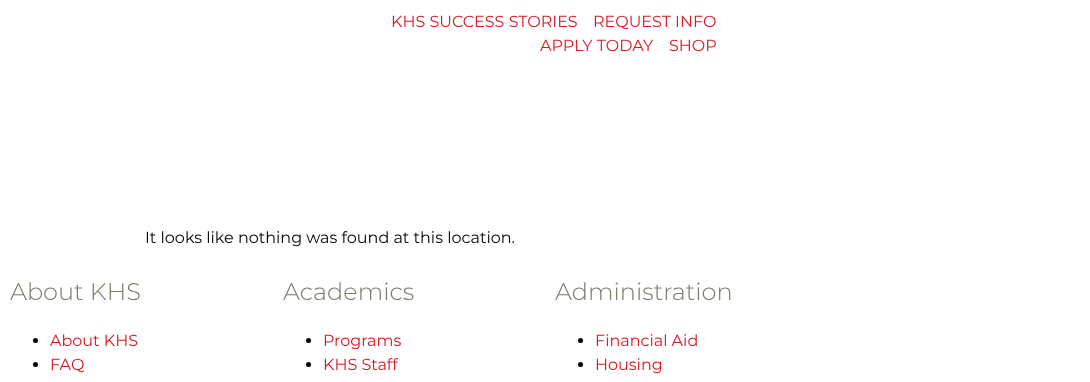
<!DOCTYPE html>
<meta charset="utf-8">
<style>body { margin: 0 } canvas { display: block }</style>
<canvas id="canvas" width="1090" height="382"></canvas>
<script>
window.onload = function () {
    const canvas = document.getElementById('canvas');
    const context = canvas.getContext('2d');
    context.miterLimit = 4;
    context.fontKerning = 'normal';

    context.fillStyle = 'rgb(255, 255, 255)';
    context.fillRect(0, 0, 1090, 382);
    context.fillStyle = 'rgb(6, 6, 6)';
    context.beginPath();
    context.arc(35.5, 340.5, 2.5, 0, 2 * Math.PI);
    context.fill();
    context.beginPath();
    context.arc(35.5, 364.5, 2.5, 0, 2 * Math.PI);
    context.fill();
    context.beginPath();
    context.arc(308.5, 340.5, 2.5, 0, 2 * Math.PI);
    context.fill();
    context.beginPath();
    context.arc(308.5, 364.5, 2.5, 0, 2 * Math.PI);
    context.fill();
    context.beginPath();
    context.arc(580.5, 340.5, 2.5, 0, 2 * Math.PI);
    context.fill();
    context.beginPath();
    context.arc(580.5, 364.5, 2.5, 0, 2 * Math.PI);
    context.fill();
    context.font = '16px Montserrat';
    context.fillStyle = 'rgb(218, 24, 33)';
    context.fillText('KHS SUCCESS STORIES', 391, 27);
    context.fillText('REQUEST INFO', 593, 27);
    context.fillText('APPLY TODAY', 540, 51);
    context.fillText('SHOP', 669, 51);
    context.fillStyle = 'rgb(6, 6, 6)';
    context.fillText('It looks like nothing was found at this location.', 145, 243);
    context.font = '300 24px Montserrat';
    context.fillStyle = 'rgb(126, 122, 106)';
    context.fillText('About KHS', 10, 300);
    context.font = '16px Montserrat';
    context.fillStyle = 'rgb(218, 24, 33)';
    context.fillText('About KHS', 50, 346);
    context.fillText('FAQ', 50, 370);
    context.font = '300 24px Montserrat';
    context.fillStyle = 'rgb(126, 122, 106)';
    context.fillText('Academics', 283, 300);
    context.font = '16px Montserrat';
    context.fillStyle = 'rgb(218, 24, 33)';
    context.fillText('Programs', 323, 346);
    context.fillText('KHS Staff', 323, 370);
    context.font = '300 24px Montserrat';
    context.fillStyle = 'rgb(126, 122, 106)';
    context.fillText('Administration', 555, 300);
    context.font = '16px Montserrat';
    context.fillStyle = 'rgb(218, 24, 33)';
    context.fillText('Financial Aid', 595, 346);
    context.fillText('Housing', 595, 370);
};
</script>
